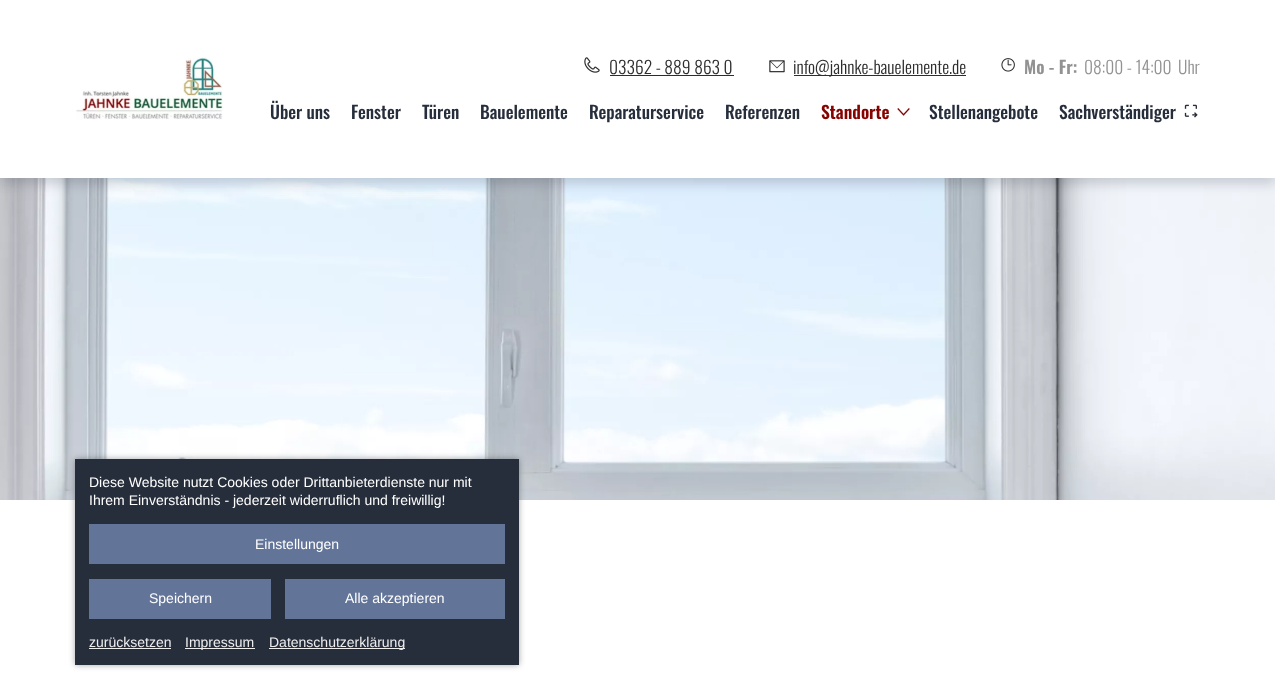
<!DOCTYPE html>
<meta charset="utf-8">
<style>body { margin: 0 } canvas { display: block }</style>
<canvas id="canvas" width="1275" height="684"></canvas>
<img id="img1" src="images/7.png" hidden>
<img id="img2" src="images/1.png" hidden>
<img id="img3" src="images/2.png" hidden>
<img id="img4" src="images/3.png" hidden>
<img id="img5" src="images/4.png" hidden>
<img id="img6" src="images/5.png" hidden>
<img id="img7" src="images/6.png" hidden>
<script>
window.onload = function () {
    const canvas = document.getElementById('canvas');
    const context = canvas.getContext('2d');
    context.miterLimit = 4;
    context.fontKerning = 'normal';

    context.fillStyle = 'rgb(255, 255, 255)';
    context.fillRect(0, 0, 1275, 684);
    context.drawImage(document.getElementById('img1'), 0, 178, 1275, 322);
    context.fillStyle = 'rgba(38, 45, 59, 0.2)';
    context.filter = 'blur(6px)';
    context.beginPath();
    context.rect(0, 6, 1275, 178);
    context.fill();
    context.filter = 'none';
    context.fillStyle = 'rgb(255, 255, 255)';
    context.fillRect(0, 0, 1275, 178);
    context.drawImage(document.getElementById('img2'), 76, 57, 147, 63);
    context.drawImage(document.getElementById('img3'), 584, 57, 16, 16);
    context.fillStyle = 'rgb(45, 45, 45)';
    context.fillRect(610, 75, 124, 1);
    context.drawImage(document.getElementById('img4'), 769, 60, 16, 13);
    context.fillRect(794, 75, 172, 1);
    context.drawImage(document.getElementById('img5'), 1001, 58, 14, 14);
    context.drawImage(document.getElementById('img6'), 897, 108, 13, 8);
    context.drawImage(document.getElementById('img7'), 1184, 104, 14, 14);
    context.fillStyle = 'rgba(0, 0, 0, 0.35)';
    context.filter = 'blur(3px)';
    context.beginPath();
    context.rect(75, 459, 444, 206);
    context.fill();
    context.filter = 'none';
    context.fillStyle = 'rgb(38, 45, 59)';
    context.fillRect(75, 459, 444, 206);
    context.fillStyle = 'rgb(98, 116, 152)';
    context.fillRect(89, 524, 416, 40);
    context.fillRect(89, 579, 182, 40);
    context.fillRect(285, 579, 220, 40);
    context.fillStyle = 'rgb(238, 238, 238)';
    context.fillRect(89, 648, 82, 1);
    context.fillRect(185, 648, 70, 1);
    context.fillRect(269, 648, 136, 1);
    context.font = '300 17.5px Oswald';
    context.fillStyle = 'rgb(45, 45, 45)';
    context.fillText('03362 - 889 863 0', 609, 74);
    context.fillText('info@jahnke-bauelemente.de', 793, 74);
    context.font = '600 17.5px Oswald';
    context.fillStyle = 'rgb(146, 146, 146)';
    context.fillText('Mo - Fr:', 1024, 74);
    context.font = '300 17.5px Oswald';
    context.fillText('08:00 - 14:00', 1084, 74);
    context.fillText('Uhr', 1178, 74);
    context.font = '500 17.5px Oswald';
    context.fillStyle = 'rgb(38, 45, 59)';
    context.fillText('Über uns', 270, 119);
    context.fillText('Fenster', 351, 119);
    context.fillText('Türen', 422, 119);
    context.fillText('Bauelemente', 480, 119);
    context.fillText('Reparaturservice', 589, 119);
    context.fillText('Referenzen', 725, 119);
    context.font = '600 17.5px Oswald';
    context.fillStyle = 'rgb(133, 3, 0)';
    context.fillText('Standorte', 821, 119);
    context.font = '500 17.5px Oswald';
    context.fillStyle = 'rgb(38, 45, 59)';
    context.fillText('Stellenangebote', 929, 119);
    context.fillText('Sachverständiger', 1059, 119);
    context.font = '14px Liberation Sans';
    context.fillStyle = 'rgb(255, 255, 255)';
    context.fillText('Diese Website nutzt Cookies oder Drittanbieterdienste nur mit', 89, 487);
    context.fillText('Ihrem Einverständnis - jederzeit widerruflich und freiwillig!', 89, 505);
    context.fillText('Einstellungen', 255, 549);
    context.fillText('Speichern', 149, 603);
    context.fillText('Alle akzeptieren', 345, 603);
    context.fillStyle = 'rgb(238, 238, 238)';
    context.fillText('zurücksetzen', 89, 647);
    context.fillText('Impressum', 185, 647);
    context.fillText('Datenschutzerklärung', 269, 647);
};
</script>
